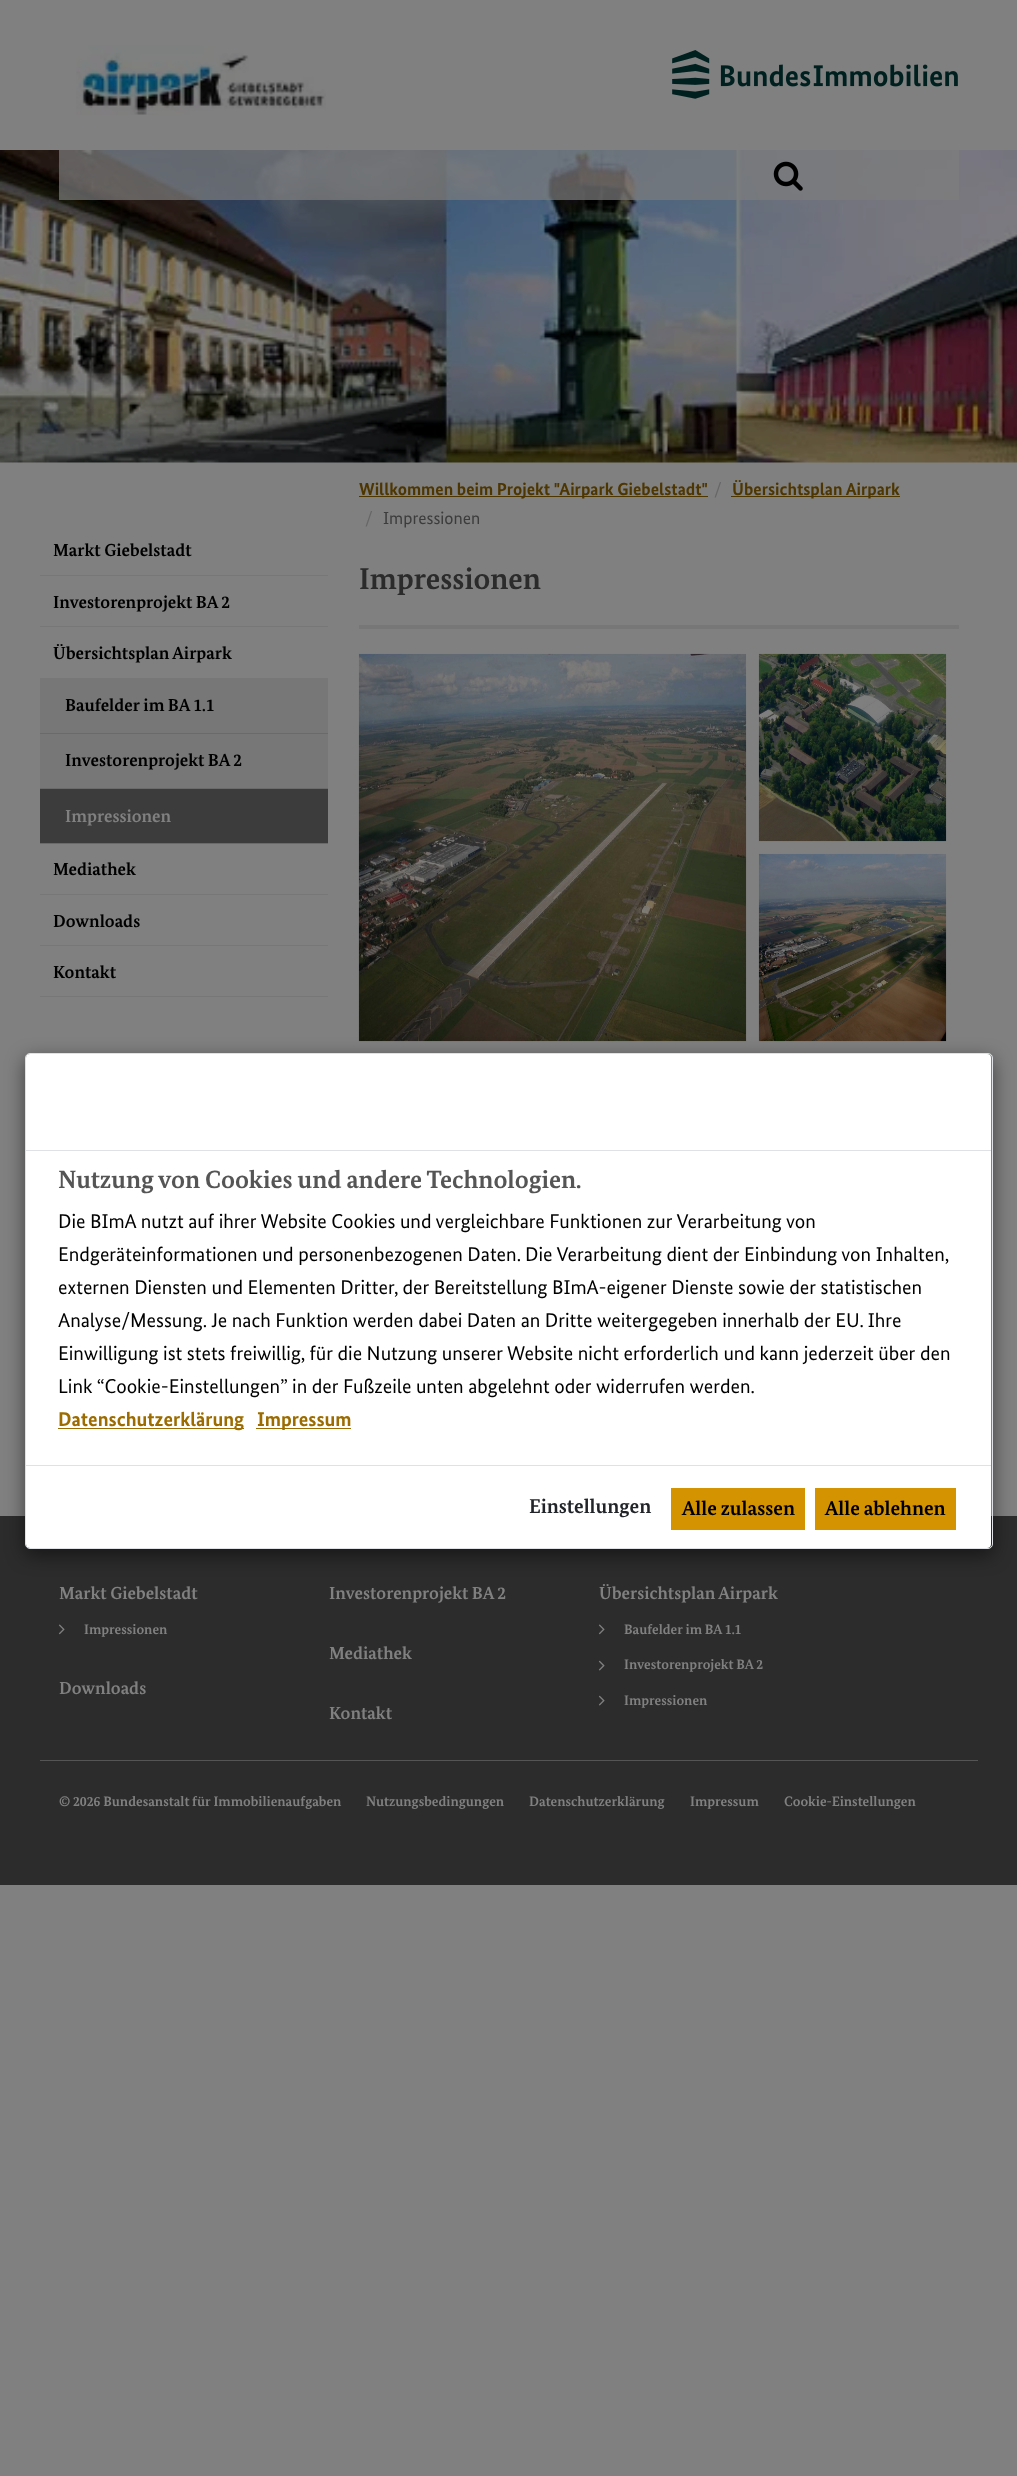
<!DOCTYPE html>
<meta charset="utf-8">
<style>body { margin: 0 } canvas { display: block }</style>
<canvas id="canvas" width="1017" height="2476"></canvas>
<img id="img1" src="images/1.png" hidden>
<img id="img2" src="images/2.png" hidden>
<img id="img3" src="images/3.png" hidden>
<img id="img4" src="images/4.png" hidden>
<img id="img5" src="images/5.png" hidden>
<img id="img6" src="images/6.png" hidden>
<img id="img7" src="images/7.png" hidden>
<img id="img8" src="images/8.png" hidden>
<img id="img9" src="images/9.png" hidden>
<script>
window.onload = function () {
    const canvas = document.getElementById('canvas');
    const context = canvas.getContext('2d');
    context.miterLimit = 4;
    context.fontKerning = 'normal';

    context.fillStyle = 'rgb(128, 128, 128)';
    context.fillRect(0, 0, 1017, 2476);
    context.drawImage(document.getElementById('img1'), 76, 45, 250, 70);
    context.drawImage(document.getElementById('img2'), 672, 50, 286, 49);
    context.drawImage(document.getElementById('img3'), 0, 150, 1017, 313);
    context.fillStyle = 'rgba(125, 125, 125, 0.7)';
    context.fillRect(59, 150, 900, 50);
    context.drawImage(document.getElementById('img4'), 773, 161, 30, 30);
    context.fillStyle = 'rgb(78, 54, 0)';
    context.fillRect(359, 496, 349, 1);
    context.fillRect(731, 496, 169, 1);
    context.fillStyle = 'rgb(119, 119, 119)';
    context.fillRect(359, 625, 600, 4);
    context.drawImage(document.getElementById('img5'), 358, 653, 389, 389);
    context.drawImage(document.getElementById('img6'), 758, 653, 189, 189);
    context.drawImage(document.getElementById('img7'), 758, 853, 189, 189);
    context.fillStyle = 'rgb(44, 44, 44)';
    context.fillRect(0, 1516, 1017, 369);
    context.fillStyle = 'rgb(85, 85, 85)';
    context.fillRect(40, 1760, 938, 1);
    context.drawImage(document.getElementById('img8'), 58, 1624, 7, 11);
    context.drawImage(document.getElementById('img8'), 598, 1624, 7, 11);
    context.drawImage(document.getElementById('img9'), 598, 1660, 7, 11);
    context.drawImage(document.getElementById('img9'), 598, 1695, 7, 11);
    context.fillStyle = 'rgb(119, 119, 119)';
    context.fillRect(40, 575, 288, 1);
    context.fillRect(40, 626, 288, 1);
    context.fillRect(40, 678, 288, 55);
    context.fillStyle = 'rgb(106, 106, 106)';
    context.fillRect(40, 733, 288, 1);
    context.fillStyle = 'rgb(119, 119, 119)';
    context.fillRect(40, 734, 288, 54);
    context.fillStyle = 'rgb(106, 106, 106)';
    context.fillRect(40, 788, 288, 1);
    context.fillStyle = 'rgb(60, 60, 60)';
    context.fillRect(40, 789, 288, 54);
    context.fillStyle = 'rgb(106, 106, 106)';
    context.fillRect(40, 843, 288, 1);
    context.fillStyle = 'rgb(119, 119, 119)';
    context.fillRect(40, 894, 288, 1);
    context.fillRect(40, 945, 288, 1);
    context.fillRect(40, 996, 288, 1);
    context.save();
    context.beginPath();
    context.moveTo(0, 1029);
    context.lineTo(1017, 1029);
    context.lineTo(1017, 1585);
    context.lineTo(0, 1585);
    context.closePath();
    context.moveTo(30, 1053);
    context.lineTo(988, 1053);
    context.bezierCurveTo(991, 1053, 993, 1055, 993, 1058);
    context.lineTo(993, 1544);
    context.bezierCurveTo(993, 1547, 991, 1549, 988, 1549);
    context.lineTo(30, 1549);
    context.bezierCurveTo(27, 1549, 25, 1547, 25, 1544);
    context.lineTo(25, 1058);
    context.bezierCurveTo(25, 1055, 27, 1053, 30, 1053);
    context.closePath();
    context.clip('evenodd');
    context.fillStyle = 'rgba(0, 0, 0, 0.5)';
    context.filter = 'blur(9.5px)';
    context.beginPath();
    context.roundRect(25, 1059, 968, 496, 5);
    context.fill();
    context.filter = 'none';
    context.restore();
    context.fillStyle = 'rgb(255, 255, 255)';
    context.beginPath();
    context.roundRect(26, 1054, 965, 494, 4);
    context.fill();
    context.beginPath();
    context.roundRect(25.5, 1053.5, 967, 495, 4.5);
    context.strokeStyle = 'rgb(222, 226, 230)';
    context.stroke();
    context.fillStyle = 'rgb(222, 226, 230)';
    context.fillRect(26, 1150, 965, 1);
    context.fillStyle = 'rgb(156, 108, 0)';
    context.fillRect(58, 1428, 186, 1);
    context.fillRect(256, 1428, 95, 1);
    context.fillStyle = 'rgb(222, 226, 230)';
    context.fillRect(26, 1465, 965, 1);
    context.fillStyle = 'rgb(212, 147, 0)';
    context.fillRect(671, 1488, 134, 42);
    context.fillRect(815, 1488, 141, 42);
    context.font = 'bold 17.5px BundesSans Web';
    context.fillStyle = 'rgb(78, 54, 0)';
    context.fillText('Willkommen beim Projekt "Airpark Giebelstadt"', 359, 495);
    context.font = '17.5px BundesSans Web';
    context.fillStyle = 'rgb(102, 102, 102)';
    context.fillText('/', 714, 495);
    context.font = 'bold 17.5px BundesSans Web';
    context.fillStyle = 'rgb(78, 54, 0)';
    context.fillText('Übersichtsplan Airpark', 732, 495);
    context.font = '17.5px BundesSans Web';
    context.fillStyle = 'rgb(102, 102, 102)';
    context.fillText('/', 365, 524);
    context.fillStyle = 'rgb(60, 60, 60)';
    context.fillText('Impressionen', 383, 524);
    context.font = 'bold 30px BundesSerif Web';
    context.fillStyle = 'rgb(43, 43, 43)';
    context.fillText('Impressionen', 359, 589);
    context.font = 'bold 17.5px BundesSerif Web';
    context.fillStyle = 'rgb(128, 128, 128)';
    context.fillText('Markt Giebelstadt', 59, 1599);
    context.font = 'bold 13.75px BundesSerif Web';
    context.fillText('Impressionen', 84, 1634);
    context.font = 'bold 17.5px BundesSerif Web';
    context.fillText('Downloads', 59, 1694);
    context.fillText('Investorenprojekt BA 2', 329, 1599);
    context.fillText('Mediathek', 329, 1659);
    context.fillText('Kontakt', 329, 1719);
    context.fillText('Übersichtsplan Airpark', 599, 1599);
    context.font = 'bold 13.75px BundesSerif Web';
    context.fillText('Baufelder im BA 1.1', 624, 1634);
    context.fillText('Investorenprojekt BA 2', 624, 1669);
    context.fillText('Impressionen', 624, 1705);
    context.fillText('© 2026 Bundesanstalt für Immobilienaufgaben', 59, 1806);
    context.fillText('Nutzungsbedingungen', 366, 1806);
    context.fillText('Datenschutzerklärung', 529, 1806);
    context.fillText('Impressum', 690, 1806);
    context.fillText('Cookie-Einstellungen', 784, 1806);
    context.font = 'bold 17.5px BundesSerif Web';
    context.fillStyle = 'rgb(0, 0, 0)';
    context.fillText('Markt Giebelstadt', 53, 556);
    context.fillText('Investorenprojekt BA 2', 53, 608);
    context.fillText('Übersichtsplan Airpark', 53, 659);
    context.fillText('Baufelder im BA 1.1', 65, 711);
    context.fillText('Investorenprojekt BA 2', 65, 766);
    context.fillStyle = 'rgb(128, 128, 128)';
    context.fillText('Impressionen', 65, 822);
    context.fillStyle = 'rgb(0, 0, 0)';
    context.fillText('Mediathek', 53, 875);
    context.fillText('Downloads', 53, 927);
    context.fillText('Kontakt', 53, 978);
    context.font = 'bold 25px BundesSerif Web';
    context.fillStyle = 'rgb(85, 85, 85)';
    context.fillText('Nutzung von Cookies und andere Technologien.', 58, 1188);
    context.font = '20px BundesSans Web';
    context.fillStyle = 'rgb(0, 0, 0)';
    context.fillText('Die BImA nutzt auf ihrer Website Cookies und vergleichbare Funktionen zur Verarbeitung von', 58, 1228);
    context.fillText('Endgeräteinformationen und personenbezogenen Daten. Die Verarbeitung dient der Einbindung von Inhalten,', 58, 1261);
    context.fillText('externen Diensten und Elementen Dritter, der Bereitstellung BImA-eigener Dienste sowie der statistischen', 58, 1294);
    context.fillText('Analyse/Messung. Je nach Funktion werden dabei Daten an Dritte weitergegeben innerhalb der EU. Ihre', 58, 1327);
    context.fillText('Einwilligung ist stets freiwillig, für die Nutzung unserer Website nicht erforderlich und kann jederzeit über den', 58, 1360);
    context.fillText('Link “Cookie-Einstellungen” in der Fußzeile unten abgelehnt oder widerrufen werden.', 58, 1393);
    context.font = 'bold 20px BundesSans Web';
    context.fillStyle = 'rgb(156, 108, 0)';
    context.fillText('Datenschutzerklärung', 58, 1426);
    context.fillText('Impressum', 257, 1426);
    context.font = 'bold 20px BundesSerif Web';
    context.fillStyle = 'rgb(33, 37, 41)';
    context.fillText('Einstellungen', 529, 1513);
    context.fillStyle = 'rgb(0, 0, 0)';
    context.fillText('Alle zulassen', 682, 1515);
    context.fillText('Alle ablehnen', 825, 1515);
};
</script>
